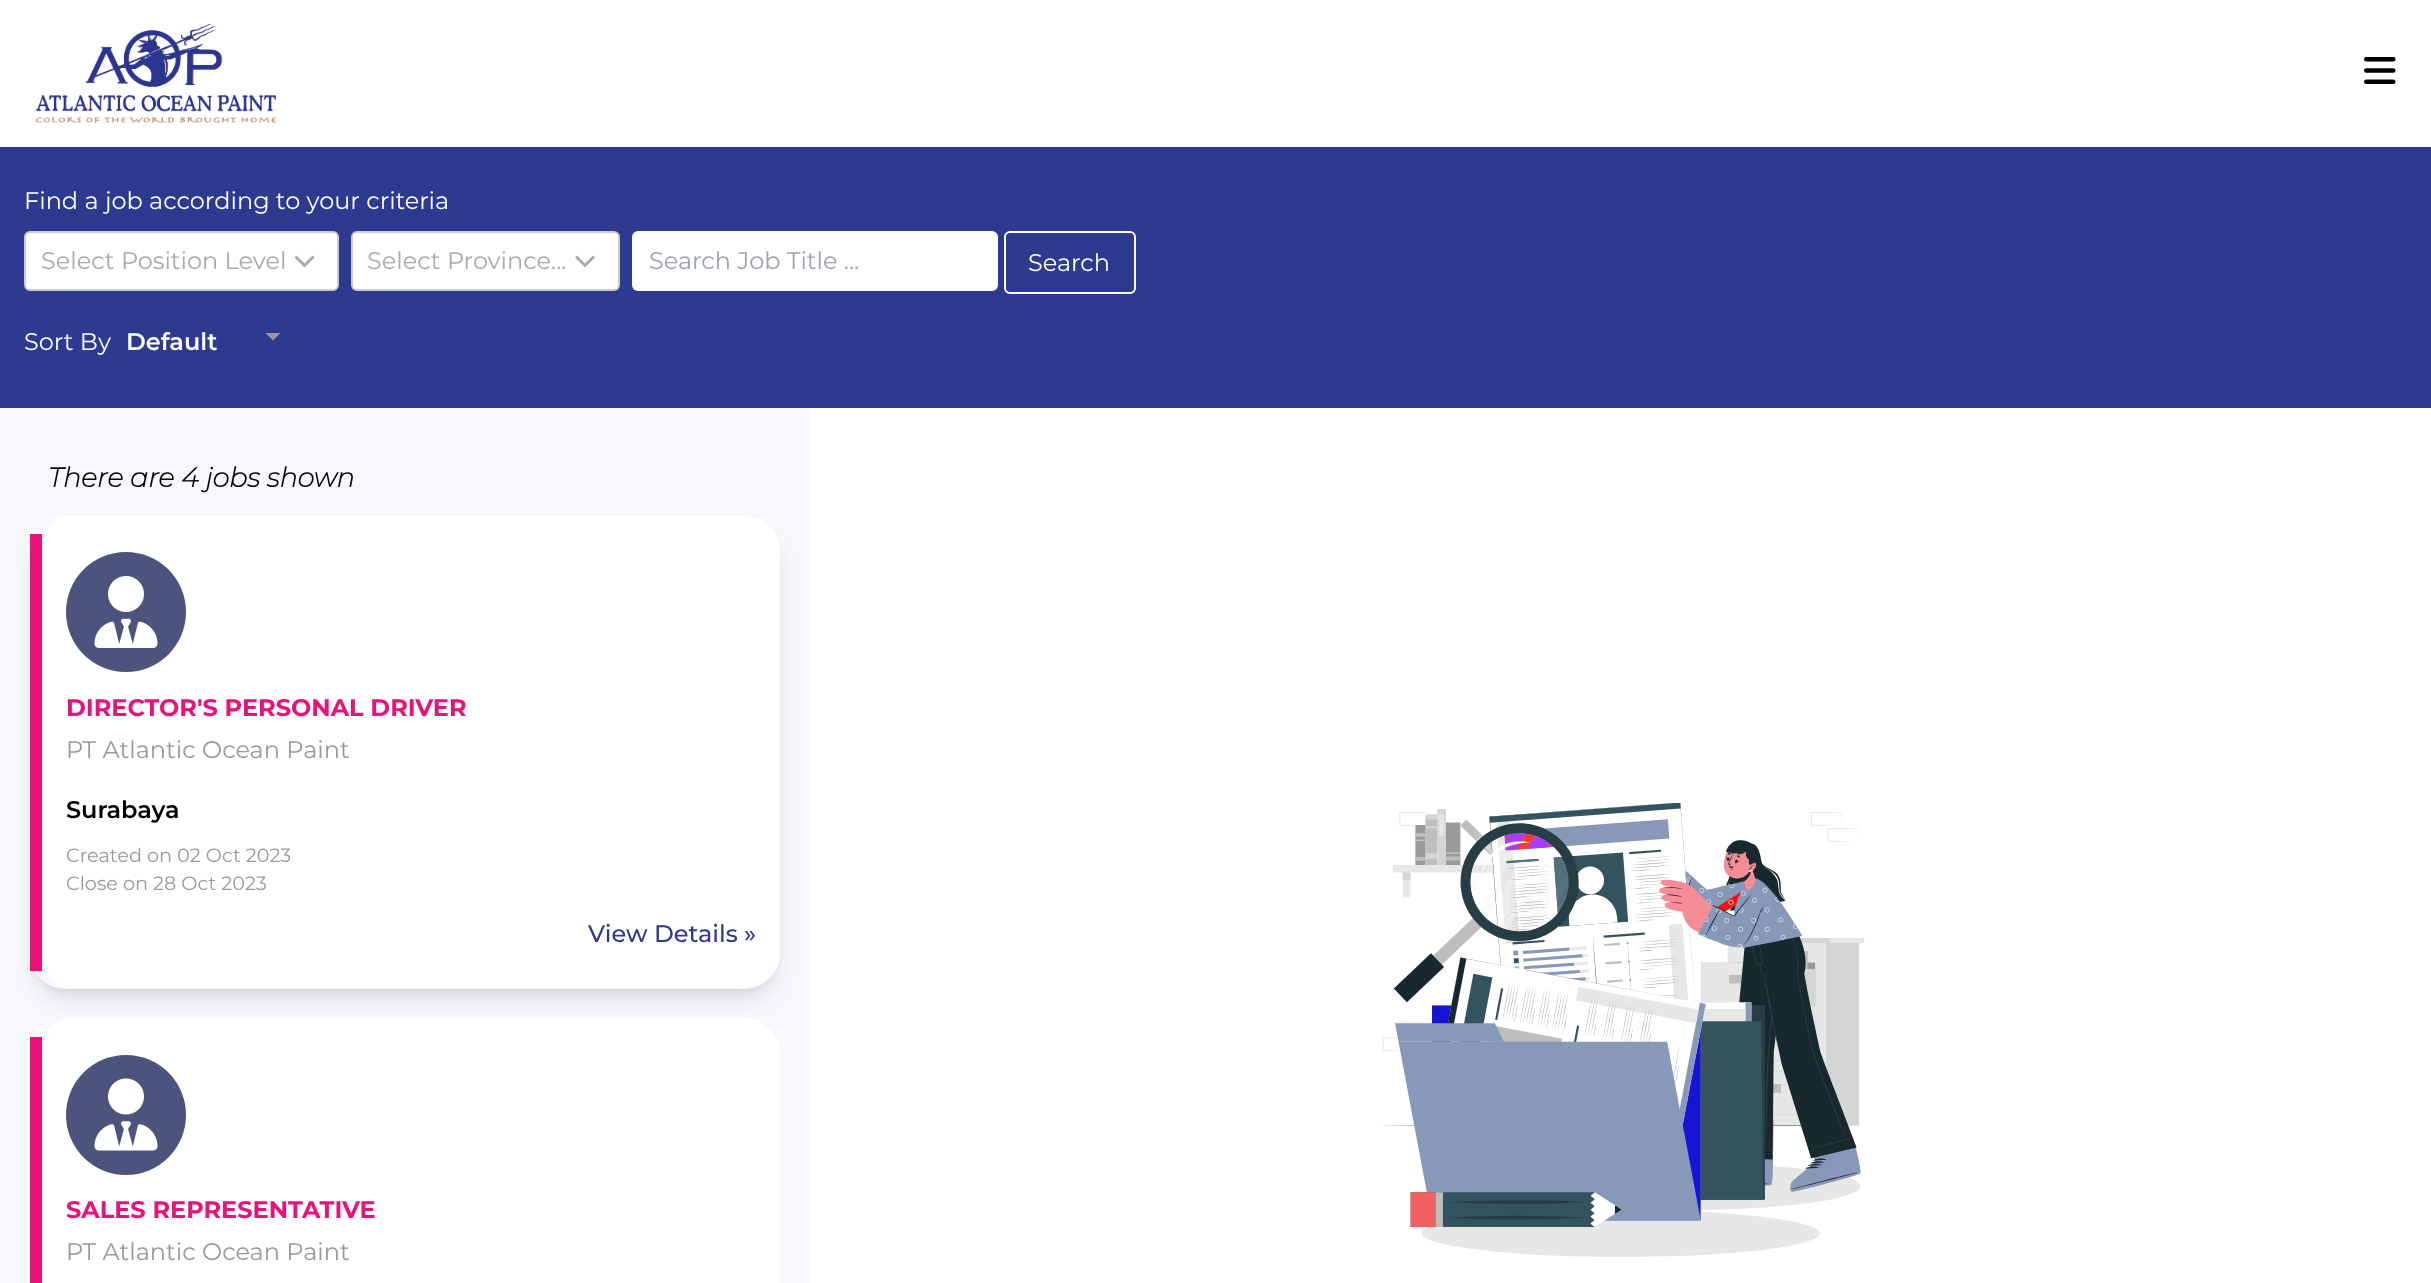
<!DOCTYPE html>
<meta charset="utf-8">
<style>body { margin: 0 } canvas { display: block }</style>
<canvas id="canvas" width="2431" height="1283"></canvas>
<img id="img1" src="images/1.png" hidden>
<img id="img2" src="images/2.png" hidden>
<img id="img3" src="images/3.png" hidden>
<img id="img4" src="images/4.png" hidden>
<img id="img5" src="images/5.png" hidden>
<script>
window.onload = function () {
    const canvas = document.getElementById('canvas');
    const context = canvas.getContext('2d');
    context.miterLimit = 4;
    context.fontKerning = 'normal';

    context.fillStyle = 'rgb(255, 255, 255)';
    context.fillRect(0, 0, 2431, 1283);
    context.drawImage(document.getElementById('img1'), 36, 24, 240, 99);
    context.drawImage(document.getElementById('img2'), 2364, 57, 32, 27);
    context.fillStyle = 'rgb(45, 58, 144)';
    context.fillRect(0, 147, 2431, 261);
    context.fillStyle = 'rgb(255, 255, 255)';
    context.beginPath();
    context.roundRect(25, 232, 313, 58, 5);
    context.fill();
    context.strokeStyle = 'rgb(204, 204, 204)';
    context.lineWidth = 2;
    context.stroke();
    context.beginPath();
    context.moveTo(295.5, 256.5);
    context.lineTo(304.5, 265.5);
    context.lineTo(313.5, 256.5);
    context.strokeStyle = 'rgb(170, 170, 170)';
    context.lineWidth = 3;
    context.stroke();
    context.beginPath();
    context.roundRect(352, 232, 267, 58, 5);
    context.fill();
    context.strokeStyle = 'rgb(204, 204, 204)';
    context.lineWidth = 2;
    context.stroke();
    context.beginPath();
    context.moveTo(576, 256.5);
    context.lineTo(585, 265.5);
    context.lineTo(594, 256.5);
    context.strokeStyle = 'rgb(170, 170, 170)';
    context.lineWidth = 3;
    context.stroke();
    context.beginPath();
    context.roundRect(632, 231, 366, 60, 6);
    context.fill();
    context.beginPath();
    context.roundRect(1005, 232, 130, 61, 5);
    context.strokeStyle = 'rgb(255, 255, 255)';
    context.lineWidth = 2;
    context.stroke();
    context.fillStyle = 'rgb(153, 153, 153)';
    context.beginPath();
    context.moveTo(265.5, 333);
    context.lineTo(280.5, 333);
    context.lineTo(273, 340.5);
    context.closePath();
    context.fill();
    context.fillStyle = 'rgb(247, 248, 251)';
    context.fillRect(0, 408, 810, 875);
    context.save();
    context.beginPath();
    context.moveTo(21, 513);
    context.lineTo(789, 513);
    context.lineTo(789, 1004);
    context.lineTo(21, 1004);
    context.closePath();
    context.moveTo(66, 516);
    context.lineTo(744, 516);
    context.bezierCurveTo(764, 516, 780, 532, 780, 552);
    context.lineTo(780, 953);
    context.bezierCurveTo(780, 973, 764, 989, 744, 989);
    context.lineTo(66, 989);
    context.bezierCurveTo(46, 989, 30, 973, 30, 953);
    context.lineTo(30, 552);
    context.bezierCurveTo(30, 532, 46, 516, 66, 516);
    context.closePath();
    context.clip('evenodd');
    context.fillStyle = 'rgba(0, 0, 0, 0.1)';
    context.filter = 'blur(4.5px)';
    context.beginPath();
    context.roundRect(36, 528, 738, 461, 30);
    context.fill();
    context.filter = 'none';
    context.restore();
    context.save();
    context.beginPath();
    context.moveTo(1, 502);
    context.lineTo(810, 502);
    context.lineTo(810, 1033);
    context.lineTo(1, 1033);
    context.closePath();
    context.moveTo(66, 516);
    context.lineTo(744, 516);
    context.bezierCurveTo(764, 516, 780, 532, 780, 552);
    context.lineTo(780, 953);
    context.bezierCurveTo(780, 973, 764, 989, 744, 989);
    context.lineTo(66, 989);
    context.bezierCurveTo(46, 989, 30, 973, 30, 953);
    context.lineTo(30, 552);
    context.bezierCurveTo(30, 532, 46, 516, 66, 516);
    context.closePath();
    context.clip('evenodd');
    context.fillStyle = 'rgba(0, 0, 0, 0.1)';
    context.filter = 'blur(11px)';
    context.beginPath();
    context.roundRect(35, 536, 741, 463, 32);
    context.fill();
    context.filter = 'none';
    context.restore();
    context.fillStyle = 'rgb(255, 255, 255)';
    context.beginPath();
    context.moveTo(66, 516);
    context.lineTo(744, 516);
    context.bezierCurveTo(764, 516, 780, 532, 780, 552);
    context.lineTo(780, 952);
    context.bezierCurveTo(780, 972, 764, 988, 744, 988);
    context.lineTo(66, 988);
    context.bezierCurveTo(53, 988, 42, 972, 42, 952);
    context.lineTo(42, 552);
    context.bezierCurveTo(42, 532, 53, 516, 66, 516);
    context.closePath();
    context.fill();
    context.fillStyle = 'rgb(234, 17, 121)';
    context.fillRect(30, 534, 12, 437);
    context.fillStyle = 'rgb(76, 84, 126)';
    context.beginPath();
    context.arc(126, 612, 60, 0, 2 * Math.PI);
    context.fill();
    context.drawImage(document.getElementById('img3'), 94, 576, 64, 72);
    context.fillStyle = 'rgb(255, 255, 255)';
    context.beginPath();
    context.moveTo(66, 1018);
    context.lineTo(744, 1018);
    context.bezierCurveTo(764, 1018, 780, 1035, 780, 1054);
    context.lineTo(780, 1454);
    context.bezierCurveTo(780, 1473, 764, 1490, 744, 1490);
    context.lineTo(66, 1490);
    context.bezierCurveTo(53, 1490, 42, 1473, 42, 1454);
    context.lineTo(42, 1054);
    context.bezierCurveTo(42, 1035, 53, 1018, 66, 1018);
    context.closePath();
    context.fill();
    context.fillStyle = 'rgb(234, 17, 121)';
    context.fillRect(30, 1037, 12, 246);
    context.fillStyle = 'rgb(76, 84, 126)';
    context.beginPath();
    context.arc(126, 1115, 60, 0, 2 * Math.PI);
    context.fill();
    context.drawImage(document.getElementById('img4'), 94, 1078, 64, 73);
    context.drawImage(document.getElementById('img5'), 1380, 803, 485, 454);
    context.font = '24px Montserrat';
    context.fillStyle = 'rgb(255, 255, 255)';
    context.fillText('Find a job according to your criteria', 24, 209);
    context.fillStyle = 'rgb(170, 170, 170)';
    context.fillText('Select Position Level', 41, 269);
    context.fillText('Select Province...', 367, 269);
    context.fillStyle = 'rgb(156, 163, 175)';
    context.fillText('Search Job Title ...', 649, 269);
    context.fillStyle = 'rgb(255, 255, 255)';
    context.fillText('Search', 1028, 271);
    context.fillText('Sort By', 24, 350);
    context.font = '600 24px Montserrat';
    context.fillText('Default', 126, 350);
    context.font = 'italic bold 27px Montserrat';
    context.fillStyle = 'rgb(0, 0, 0)';
    context.fillText('There are 4 jobs shown', 48, 487);
    context.font = 'bold 24px Montserrat';
    context.fillStyle = 'rgb(234, 17, 121)';
    context.fillText('DIRECTOR\'S PERSONAL DRIVER', 66, 716);
    context.font = '24px Montserrat';
    context.fillStyle = 'rgb(153, 153, 153)';
    context.fillText('PT Atlantic Ocean Paint', 66, 758);
    context.font = '600 24px Montserrat';
    context.fillStyle = 'rgb(0, 0, 0)';
    context.fillText('Surabaya', 66, 818);
    context.font = '19.25px Montserrat';
    context.fillStyle = 'rgb(153, 153, 153)';
    context.fillText('Created on 02 Oct 2023', 66, 862);
    context.fillText('Close on 28 Oct 2023', 66, 890);
    context.font = '500 24px Montserrat';
    context.fillStyle = 'rgb(45, 58, 144)';
    context.fillText('View Details »', 588, 942);
    context.font = 'bold 24px Montserrat';
    context.fillStyle = 'rgb(234, 17, 121)';
    context.fillText('SALES REPRESENTATIVE', 66, 1218);
    context.font = '24px Montserrat';
    context.fillStyle = 'rgb(153, 153, 153)';
    context.fillText('PT Atlantic Ocean Paint', 66, 1260);
};
</script>
